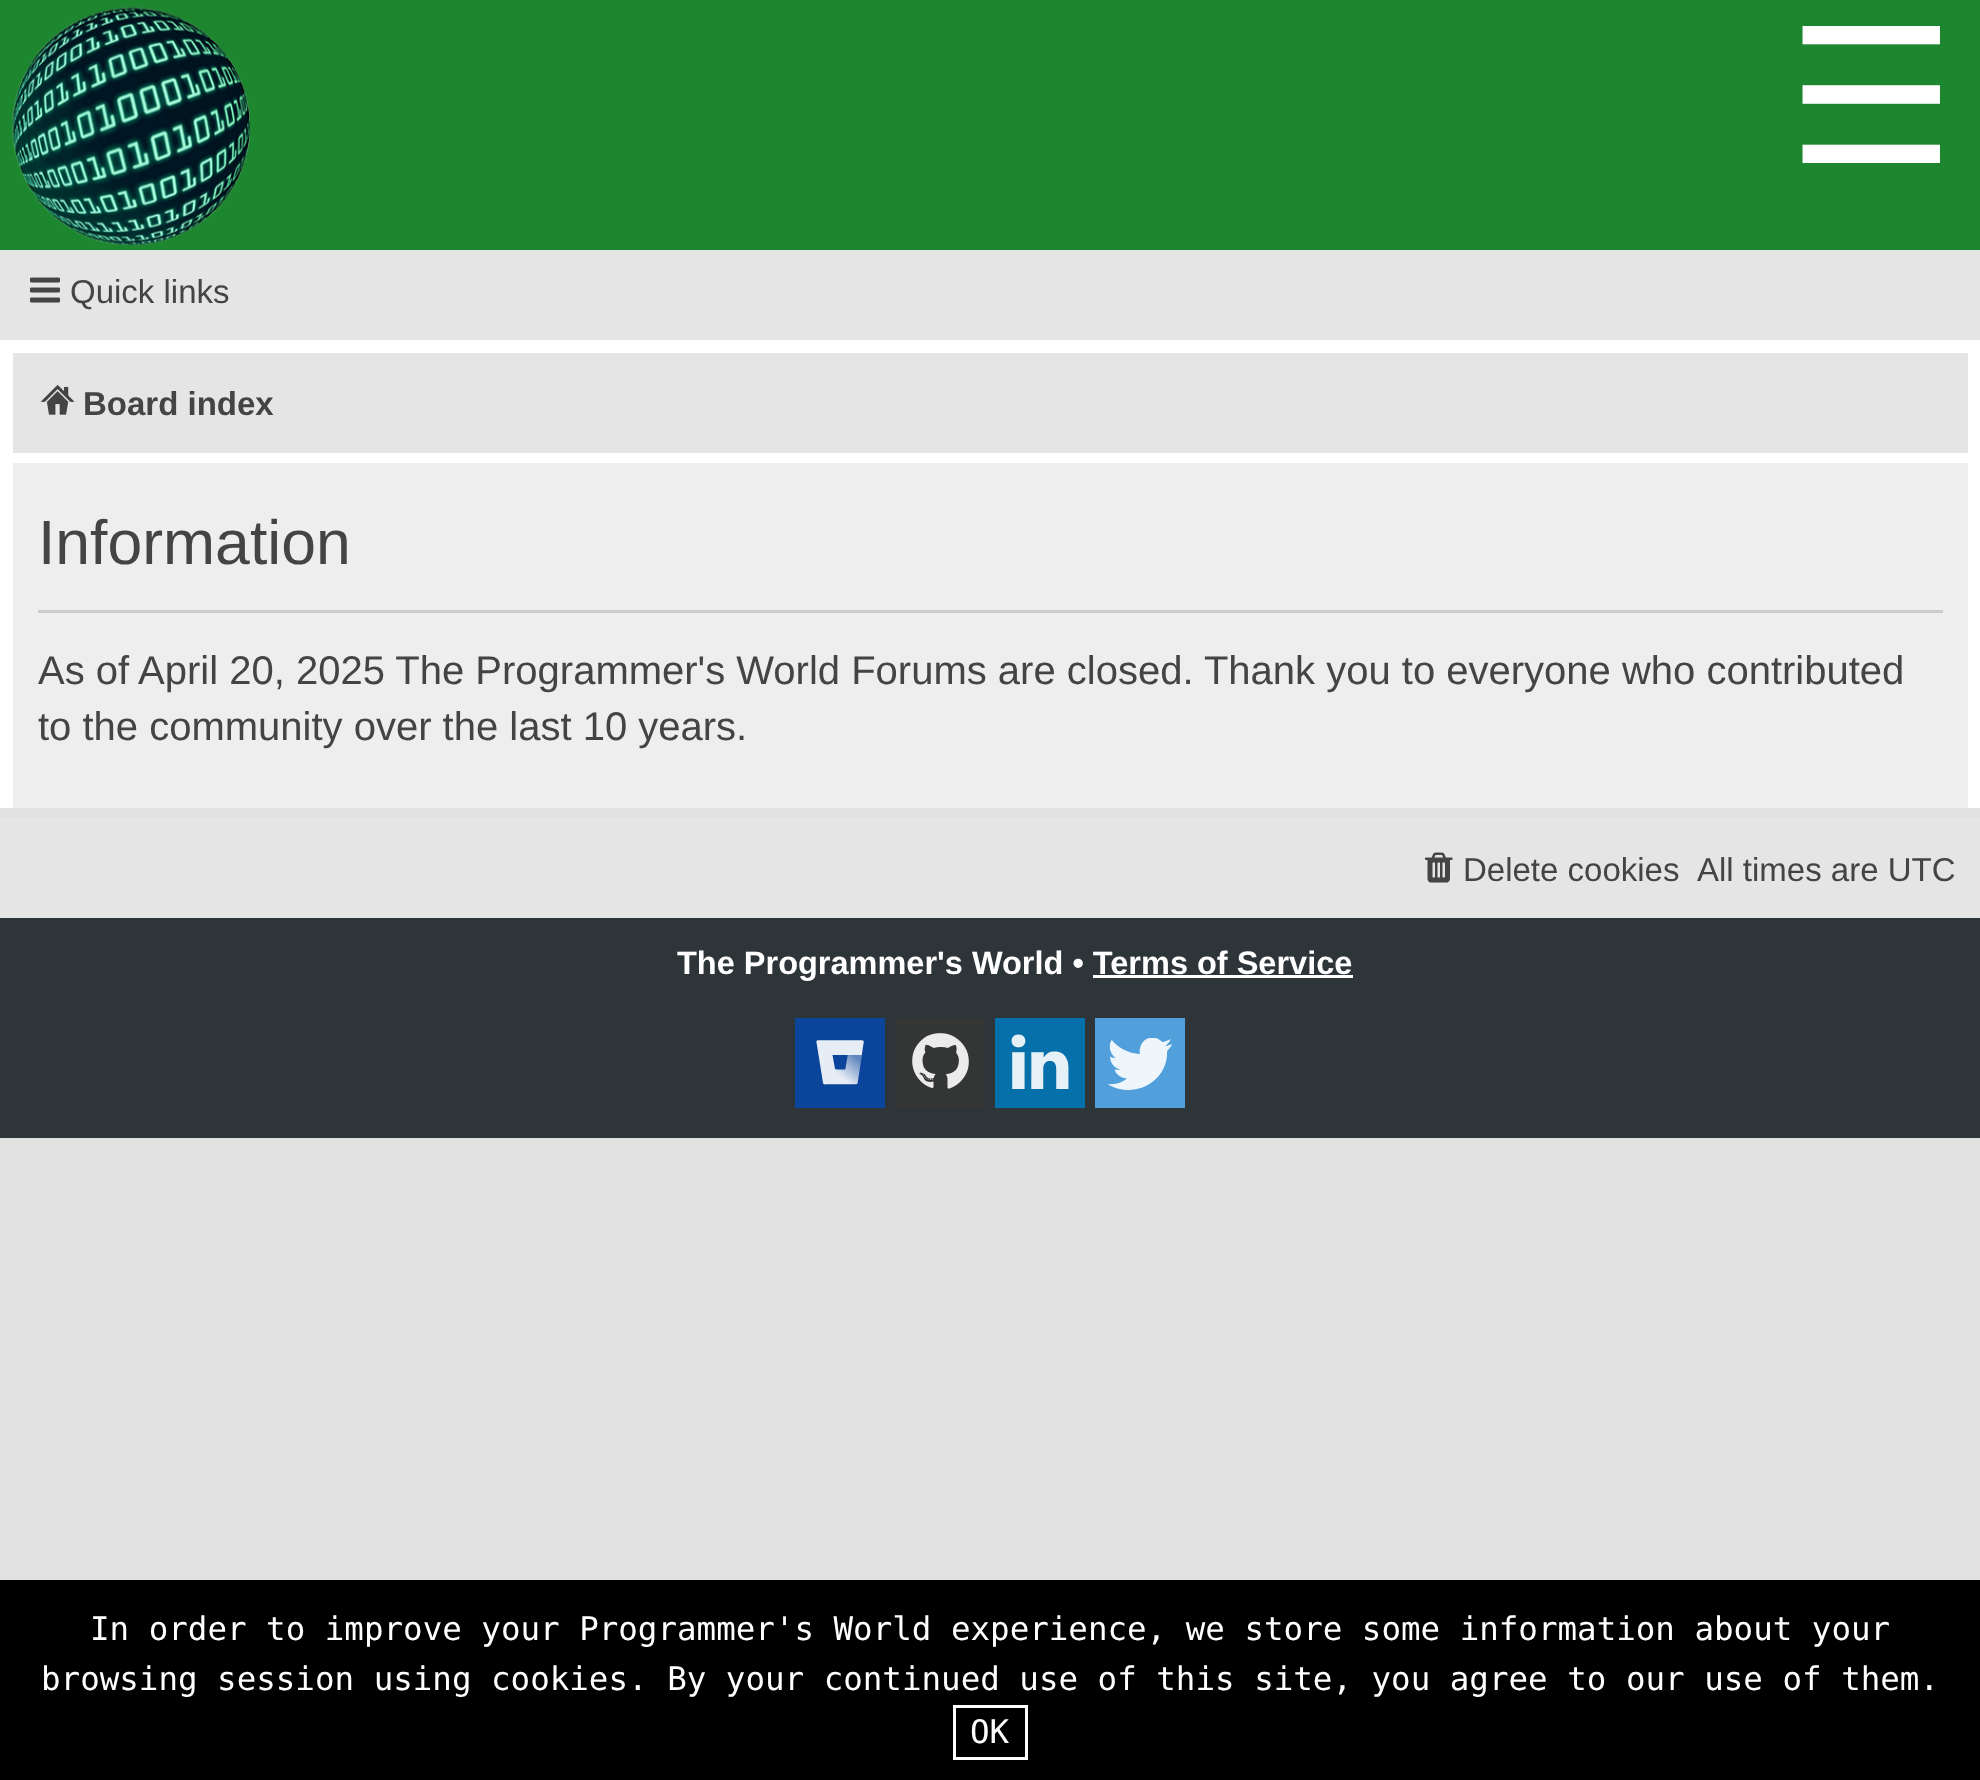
<!DOCTYPE html>
<meta charset="utf-8">
<style>body { margin: 0 } canvas { display: block }</style>
<canvas id="canvas" width="1980" height="1780"></canvas>
<img id="img1" src="images/1.png" hidden>
<img id="img2" src="images/2.png" hidden>
<img id="img3" src="images/3.png" hidden>
<img id="img4" src="images/4.png" hidden>
<img id="img5" src="images/5.png" hidden>
<img id="img6" src="images/6.png" hidden>
<img id="img7" src="images/7.png" hidden>
<img id="img8" src="images/8.png" hidden>
<script>
window.onload = function () {
    const canvas = document.getElementById('canvas');
    const context = canvas.getContext('2d');
    context.miterLimit = 4;
    context.fontKerning = 'normal';

    context.fillStyle = 'rgb(225, 225, 225)';
    context.fillRect(0, 0, 1980, 1780);
    context.fillStyle = 'rgb(28, 135, 47)';
    context.fillRect(0, 0, 1980, 250);
    context.drawImage(document.getElementById('img1'), 12, 7, 238, 238);
    context.fillStyle = 'rgb(229, 229, 229)';
    context.fillRect(0, 250, 1980, 90);
    context.drawImage(document.getElementById('img2'), 30, 277, 30, 26);
    context.fillStyle = 'rgb(255, 255, 255)';
    context.fillRect(0, 340, 1980, 468);
    context.fillStyle = 'rgb(229, 229, 229)';
    context.fillRect(13, 353, 1955, 100);
    context.drawImage(document.getElementById('img3'), 40, 384, 35, 31);
    context.fillStyle = 'rgb(238, 238, 238)';
    context.fillRect(13, 463, 1955, 345);
    context.fillStyle = 'rgb(204, 204, 204)';
    context.fillRect(38, 610, 1905, 3);
    context.fillStyle = 'rgb(229, 229, 229)';
    context.fillRect(0, 818, 1980, 100);
    context.drawImage(document.getElementById('img4'), 1425, 852, 28, 31);
    context.fillStyle = 'rgb(46, 53, 57)';
    context.fillRect(0, 918, 1980, 220);
    context.fillStyle = 'rgb(255, 255, 255)';
    context.fillRect(1093, 975, 260, 3);
    context.fillStyle = 'rgb(11, 69, 155)';
    context.fillRect(795, 1018, 90, 90);
    context.drawImage(document.getElementById('img5'), 816, 1040, 48, 45);
    context.fillStyle = 'rgb(52, 53, 53)';
    context.fillRect(895, 1018, 90, 90);
    context.drawImage(document.getElementById('img6'), 912, 1033, 57, 56);
    context.fillStyle = 'rgb(5, 112, 169)';
    context.fillRect(995, 1018, 90, 90);
    context.drawImage(document.getElementById('img7'), 1011, 1034, 58, 55);
    context.fillStyle = 'rgb(81, 160, 220)';
    context.fillRect(1095, 1018, 90, 90);
    context.drawImage(document.getElementById('img8'), 1108, 1038, 65, 52);
    context.fillStyle = 'rgb(0, 0, 0)';
    context.fillRect(0, 1580, 1980, 200);
    context.strokeStyle = 'rgb(255, 255, 255)';
    context.lineWidth = 3;
    context.strokeRect(954.5, 1706.5, 72, 52);
    context.font = '188px DejaVu Sans';
    context.fillStyle = 'rgb(255, 255, 255)';
    context.fillText('☰', 1787, 163);
    context.font = '33px Liberation Sans';
    context.fillStyle = 'rgb(68, 68, 68)';
    context.fillText('Quick links', 70, 303);
    context.font = 'bold 33px Liberation Sans';
    context.fillText('Board index', 83, 415);
    context.font = '62.5px Liberation Sans';
    context.fillText('Information', 38, 564);
    context.font = '40px Liberation Sans';
    context.fillText('As of April 20, 2025 The Programmer\'s World Forums are closed. Thank you to everyone who contributed', 38, 684);
    context.fillText('to the community over the last 10 years.', 38, 740);
    context.font = '33px Liberation Sans';
    context.fillText('Delete cookies', 1463, 881);
    context.fillText('All times are UTC', 1697, 881);
    context.font = 'bold 32.5px Liberation Sans';
    context.fillStyle = 'rgb(255, 255, 255)';
    context.fillText('The Programmer\'s World • Terms of Service', 677, 974);
    context.font = '32.5px DejaVu Sans Mono';
    context.fillText('In order to improve your Programmer\'s World experience, we store some information about your', 90, 1640);
    context.fillText('browsing session using cookies. By your continued use of this site, you agree to our use of them.', 41, 1690);
    context.fillText('OK', 970, 1743);
};
</script>
